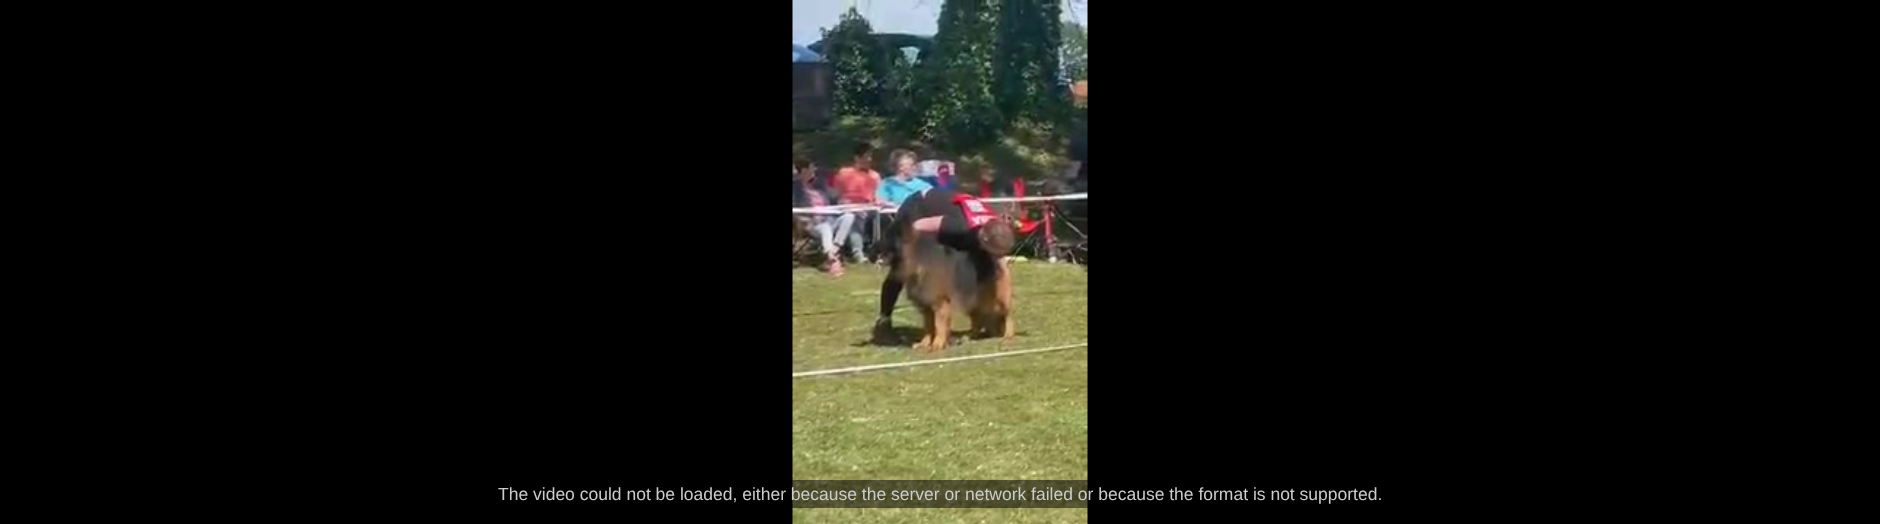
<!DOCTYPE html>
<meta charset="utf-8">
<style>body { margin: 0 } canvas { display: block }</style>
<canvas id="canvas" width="1880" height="524"></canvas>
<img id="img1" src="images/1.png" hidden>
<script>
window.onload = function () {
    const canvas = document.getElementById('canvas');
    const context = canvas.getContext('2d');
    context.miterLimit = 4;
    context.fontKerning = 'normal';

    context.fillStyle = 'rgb(0, 0, 0)';
    context.fillRect(0, 0, 1880, 524);
    context.drawImage(document.getElementById('img1'), 792, 0, 296, 524);
    context.fillStyle = 'rgba(0, 0, 0, 0.5)';
    context.fillRect(792, 480, 296, 28);
    context.font = '17.5px Liberation Sans';
    context.fillStyle = 'rgb(204, 204, 204)';
    context.fillText('The video could not be loaded, either because the server or network failed or because the format is not supported.', 498, 500);
};
</script>
